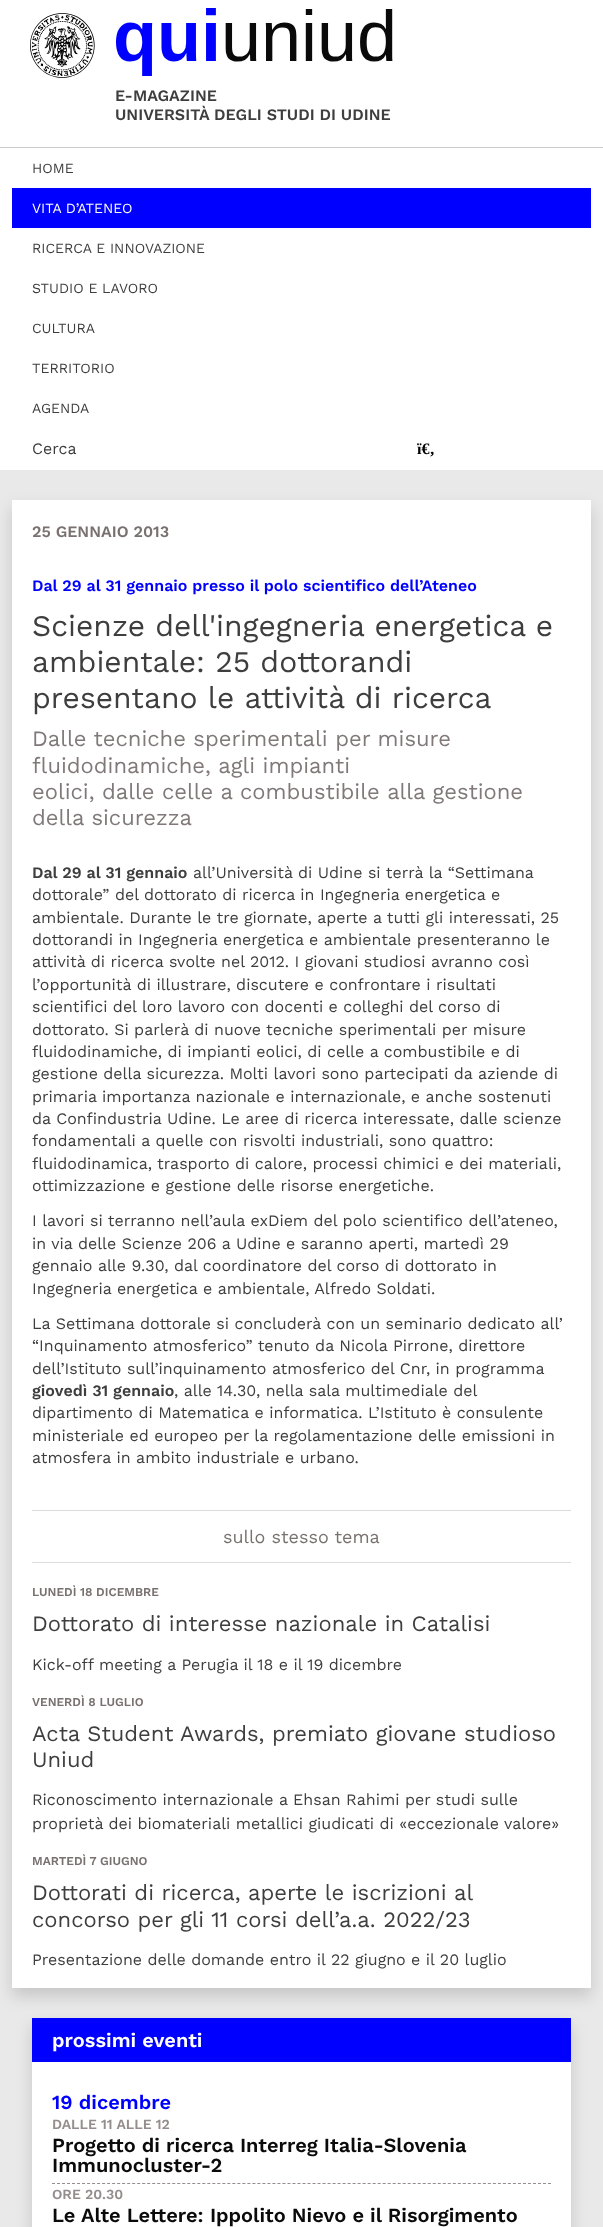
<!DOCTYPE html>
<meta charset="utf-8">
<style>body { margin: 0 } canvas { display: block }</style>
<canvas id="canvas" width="603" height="2227"></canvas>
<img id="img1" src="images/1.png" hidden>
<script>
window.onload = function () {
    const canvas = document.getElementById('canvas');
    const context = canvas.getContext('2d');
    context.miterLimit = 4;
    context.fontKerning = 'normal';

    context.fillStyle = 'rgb(255, 255, 255)';
    context.fillRect(0, 0, 603, 2227);
    context.drawImage(document.getElementById('img1'), 30, 8, 363, 70);
    context.fillStyle = 'rgb(204, 204, 204)';
    context.fillRect(0, 147, 603, 1);
    context.fillStyle = 'rgb(0, 0, 255)';
    context.fillRect(12, 188, 579, 40);
    context.fillStyle = 'rgb(233, 233, 233)';
    context.fillRect(0, 470, 603, 1757);
    context.fillStyle = 'rgba(0, 0, 0, 0.15)';
    context.filter = 'blur(8px)';
    context.beginPath();
    context.rect(12, 508, 579, 1488);
    context.fill();
    context.filter = 'none';
    context.fillStyle = 'rgb(255, 255, 255)';
    context.fillRect(12, 500, 579, 1488);
    context.fillStyle = 'rgb(218, 220, 215)';
    context.fillRect(32, 1510, 539, 1);
    context.fillRect(32, 1562, 539, 1);
    context.fillStyle = 'rgba(0, 0, 0, 0.15)';
    context.filter = 'blur(8px)';
    context.beginPath();
    context.rect(32, 2026, 539, 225);
    context.fill();
    context.filter = 'none';
    context.fillStyle = 'rgb(255, 255, 255)';
    context.fillRect(32, 2062, 539, 165);
    context.fillStyle = 'rgb(0, 0, 255)';
    context.fillRect(32, 2018, 539, 44);
    context.beginPath();
    context.moveTo(52, 2183.5);
    context.lineTo(551, 2183.5);
    context.strokeStyle = 'rgb(149, 141, 141)';
    context.setLineDash([3, 2.01]);
    context.stroke();
    context.font = '600 16px Work Sans';
    context.fillStyle = 'rgb(62, 62, 62)';
    context.fillText('E-MAGAZINE', 115, 101);
    context.fillText('UNIVERSITÀ DEGLI STUDI DI UDINE', 115, 120);
    context.font = '14px Work Sans';
    context.fillText('HOME', 32, 173);
    context.fillStyle = 'rgb(255, 255, 255)';
    context.fillText('VITA D’ATENEO', 32, 213);
    context.fillStyle = 'rgb(62, 62, 62)';
    context.fillText('RICERCA E INNOVAZIONE', 32, 253);
    context.fillText('STUDIO E LAVORO', 32, 293);
    context.fillText('CULTURA', 32, 333);
    context.fillText('TERRITORIO', 32, 373);
    context.fillText('AGENDA', 32, 413);
    context.font = '16px Work Sans';
    context.fillText('Cerca', 32, 454);
    context.font = 'bold 16px Liberation Serif';
    context.fillStyle = 'rgb(0, 0, 0)';
    context.fillText('ï€‚', 417, 454);
    context.font = '600 16px Work Sans';
    context.fillStyle = 'rgb(121, 113, 111)';
    context.fillText('25 GENNAIO 2013', 32, 537);
    context.fillStyle = 'rgb(0, 0, 255)';
    context.fillText('Dal 29 al 31 gennaio presso il polo scientifico dell’Ateneo', 32, 591);
    context.font = '30px Work Sans';
    context.fillStyle = 'rgb(62, 62, 62)';
    context.fillText('Scienze dell\'ingegneria energetica e', 32, 636);
    context.fillText('ambientale: 25 dottorandi', 32, 672);
    context.fillText('presentano le attività di ricerca', 32, 708);
    context.font = '22px Work Sans';
    context.fillStyle = 'rgb(129, 121, 121)';
    context.fillText('Dalle tecniche sperimentali per misure', 32, 746);
    context.fillText('fluidodinamiche, agli impianti', 32, 773);
    context.fillText('eolici, dalle celle a combustibile alla gestione', 32, 799);
    context.fillText('della sicurezza', 32, 825);
    context.font = '600 16px Work Sans';
    context.fillStyle = 'rgb(62, 62, 62)';
    context.fillText('Dal 29 al 31 gennaio', 32, 878);
    context.font = '16px Work Sans';
    context.fillText('all’Università di Udine si terrà la “Settimana', 193, 878);
    context.fillText('dottorale” del dottorato di ricerca in Ingegneria energetica e', 32, 900);
    context.fillText('ambientale. Durante le tre giornate, aperte a tutti gli interessati, 25', 32, 923);
    context.fillText('dottorandi in Ingegneria energetica e ambientale presenteranno le', 32, 945);
    context.fillText('attività di ricerca svolte nel 2012. I giovani studiosi avranno così', 32, 967);
    context.fillText('l’opportunità di illustrare, discutere e confrontare i risultati', 32, 990);
    context.fillText('scientifici del loro lavoro con docenti e colleghi del corso di', 32, 1012);
    context.fillText('dottorato. Si parlerà di nuove tecniche sperimentali per misure', 32, 1035);
    context.fillText('fluidodinamiche, di impianti eolici, di celle a combustibile e di', 32, 1057);
    context.fillText('gestione della sicurezza. Molti lavori sono partecipati da aziende di', 32, 1079);
    context.fillText('primaria importanza nazionale e internazionale, e anche sostenuti', 32, 1102);
    context.fillText('da Confindustria Udine. Le aree di ricerca interessate, dalle scienze', 32, 1124);
    context.fillText('fondamentali a quelle con risvolti industriali, sono quattro:', 32, 1146);
    context.fillText('fluidodinamica, trasporto di calore, processi chimici e dei materiali,', 32, 1169);
    context.fillText('ottimizzazione e gestione delle risorse energetiche.', 32, 1191);
    context.fillText('I lavori si terranno nell’aula exDiem del polo scientifico dell’ateneo,', 32, 1226);
    context.fillText('in via delle Scienze 206 a Udine e saranno aperti, martedì 29', 32, 1249);
    context.fillText('gennaio alle 9.30, dal coordinatore del corso di dottorato in', 32, 1271);
    context.fillText('Ingegneria energetica e ambientale, Alfredo Soldati.', 32, 1294);
    context.fillText('La Settimana dottorale si concluderà con un seminario dedicato all’', 32, 1329);
    context.fillText('“Inquinamento atmosferico” tenuto da Nicola Pirrone, direttore', 32, 1351);
    context.fillText('dell’Istituto sull’inquinamento atmosferico del Cnr, in programma', 32, 1374);
    context.font = '600 16px Work Sans';
    context.fillText('giovedì 31 gennaio', 32, 1396);
    context.font = '16px Work Sans';
    context.fillText(', alle 14.30, nella sala multimediale del', 174, 1396);
    context.fillText('dipartimento di Matematica e informatica. L’Istituto è consulente', 32, 1418);
    context.fillText('ministeriale ed europeo per la regolamentazione delle emissioni in', 32, 1441);
    context.fillText('atmosfera in ambito industriale e urbano.', 32, 1463);
    context.font = '18px Work Sans';
    context.fillStyle = 'rgb(121, 113, 111)';
    context.fillText('sullo stesso tema', 223, 1543);
    context.font = '600 12px Work Sans';
    context.fillText('LUNEDÌ 18 DICEMBRE', 32, 1596);
    context.font = '22px Work Sans';
    context.fillStyle = 'rgb(62, 62, 62)';
    context.fillText('Dottorato di interesse nazionale in Catalisi', 32, 1631);
    context.font = '16px Work Sans';
    context.fillText('Kick-off meeting a Perugia il 18 e il 19 dicembre', 32, 1670);
    context.font = '600 12px Work Sans';
    context.fillStyle = 'rgb(121, 113, 111)';
    context.fillText('VENERDÌ 8 LUGLIO', 32, 1706);
    context.font = '22px Work Sans';
    context.fillStyle = 'rgb(62, 62, 62)';
    context.fillText('Acta Student Awards, premiato giovane studioso', 32, 1741);
    context.fillText('Uniud', 32, 1767);
    context.font = '16px Work Sans';
    context.fillText('Riconoscimento internazionale a Ehsan Rahimi per studi sulle', 32, 1805);
    context.fillText('proprietà dei biomateriali metallici giudicati di «eccezionale valore»', 32, 1829);
    context.font = '600 12px Work Sans';
    context.fillStyle = 'rgb(121, 113, 111)';
    context.fillText('MARTEDÌ 7 GIUGNO', 32, 1865);
    context.font = '22px Work Sans';
    context.fillStyle = 'rgb(62, 62, 62)';
    context.fillText('Dottorati di ricerca, aperte le iscrizioni al', 32, 1900);
    context.fillText('concorso per gli 11 corsi dell’a.a. 2022/23', 32, 1927);
    context.font = '16px Work Sans';
    context.fillText('Presentazione delle domande entro il 22 giugno e il 20 luglio', 32, 1965);
    context.font = '600 20px Work Sans';
    context.fillStyle = 'rgb(255, 255, 255)';
    context.fillText('prossimi eventi', 52, 2047);
    context.fillStyle = 'rgb(0, 0, 255)';
    context.fillText('19 dicembre', 52, 2109);
    context.font = '600 14px Work Sans';
    context.fillStyle = 'rgb(149, 141, 141)';
    context.fillText('DALLE 11 ALLE 12', 52, 2129);
    context.font = '600 20px Work Sans';
    context.fillStyle = 'rgb(10, 10, 10)';
    context.fillText('Progetto di ricerca Interreg Italia-Slovenia', 52, 2152);
    context.fillText('Immunocluster-2', 52, 2172);
    context.font = '600 14px Work Sans';
    context.fillStyle = 'rgb(149, 141, 141)';
    context.fillText('ORE 20.30', 52, 2199);
    context.font = '600 20px Work Sans';
    context.fillStyle = 'rgb(10, 10, 10)';
    context.fillText('Le Alte Lettere: Ippolito Nievo e il Risorgimento', 52, 2222);
};
</script>
